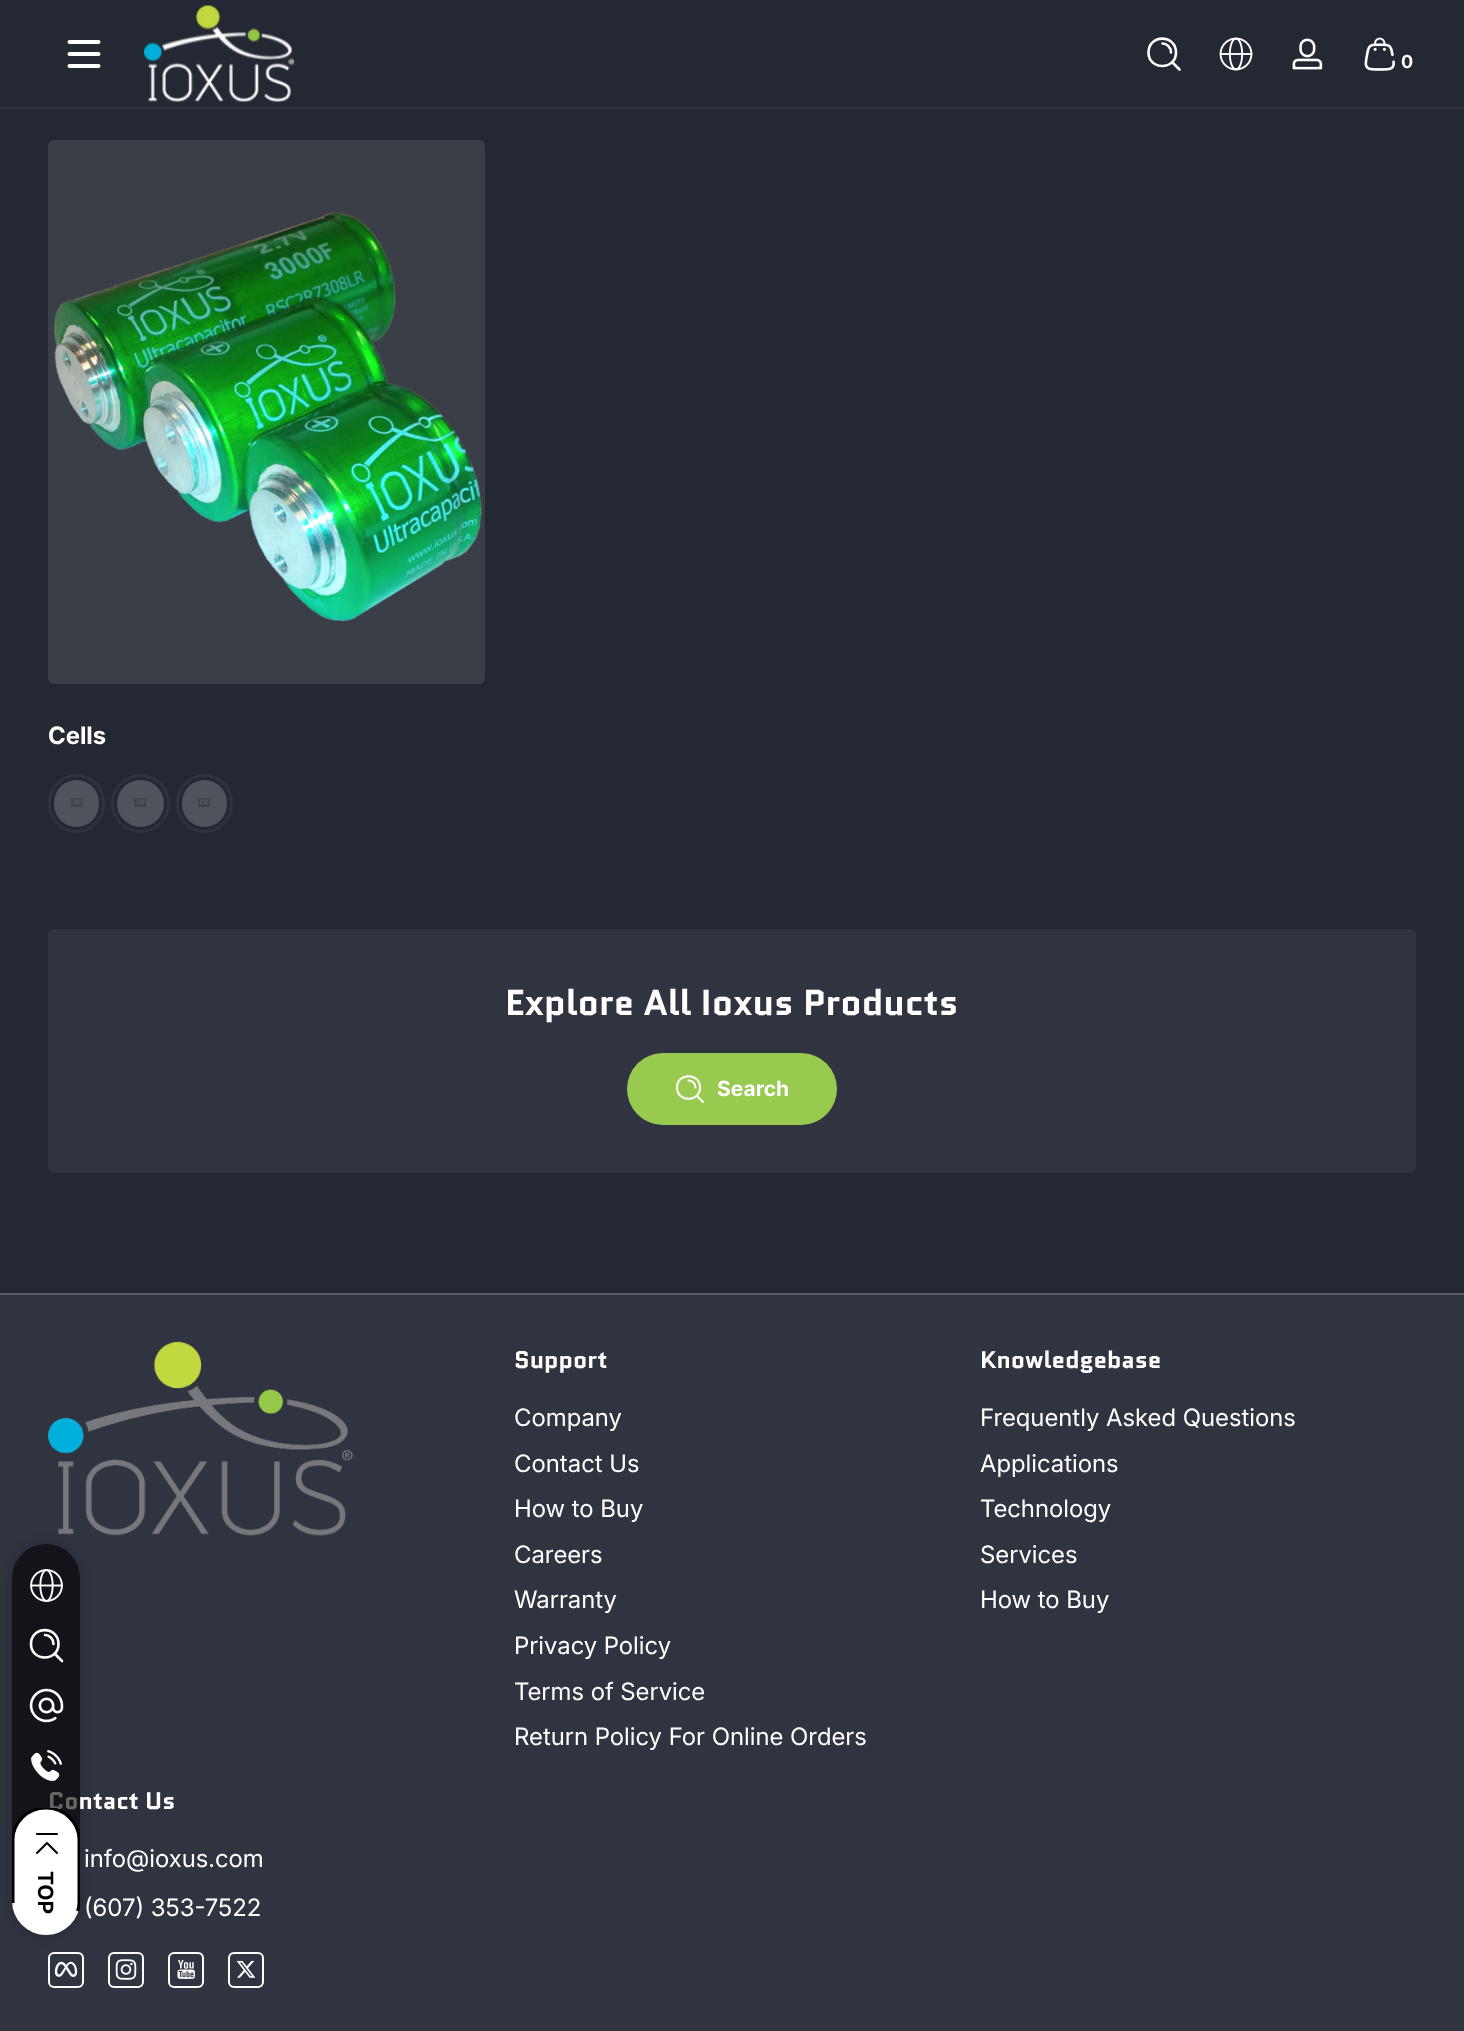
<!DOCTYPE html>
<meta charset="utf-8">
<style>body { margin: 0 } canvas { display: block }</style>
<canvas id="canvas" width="1464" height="2031"></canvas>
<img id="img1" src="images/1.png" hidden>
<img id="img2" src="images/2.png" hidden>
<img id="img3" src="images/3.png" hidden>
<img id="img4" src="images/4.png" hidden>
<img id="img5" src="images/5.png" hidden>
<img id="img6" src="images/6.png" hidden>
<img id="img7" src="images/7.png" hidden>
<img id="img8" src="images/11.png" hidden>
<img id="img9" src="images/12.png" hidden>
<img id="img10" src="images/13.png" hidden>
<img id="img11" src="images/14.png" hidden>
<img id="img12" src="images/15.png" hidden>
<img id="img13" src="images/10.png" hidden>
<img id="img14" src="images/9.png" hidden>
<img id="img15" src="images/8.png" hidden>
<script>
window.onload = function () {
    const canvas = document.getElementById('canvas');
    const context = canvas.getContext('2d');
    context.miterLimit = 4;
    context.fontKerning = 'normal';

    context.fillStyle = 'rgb(36, 40, 51)';
    context.fillRect(0, 0, 1464, 2031);
    context.beginPath();
    context.moveTo(69.5, 42);
    context.lineTo(98.5, 42);
    context.moveTo(69.5, 54);
    context.lineTo(98.5, 54);
    context.moveTo(69.5, 66);
    context.lineTo(98.5, 66);
    context.strokeStyle = 'rgb(255, 255, 255)';
    context.lineWidth = 4;
    context.lineCap = 'round';
    context.stroke();
    context.drawImage(document.getElementById('img1'), 144, 5, 150, 97);
    context.beginPath();
    context.moveTo(1162.5, 43.5);
    context.bezierCurveTo(1167, 43.5, 1171, 47.5, 1171, 52.5);
    context.moveTo(1172, 62);
    context.lineTo(1179.5, 69.5);
    context.moveTo(1176, 52.5);
    context.bezierCurveTo(1176, 70.5, 1148.5, 70.5, 1148.5, 52.5);
    context.bezierCurveTo(1148.5, 34, 1176, 34, 1176, 52.5);
    context.closePath();
    context.lineWidth = 2.6;
    context.lineJoin = 'round';
    context.stroke();
    context.drawImage(document.getElementById('img2'), 1219, 37, 34, 34);
    context.drawImage(document.getElementById('img3'), 1292, 38, 31, 32);
    context.drawImage(document.getElementById('img4'), 1364, 37, 31, 34);
    context.fillStyle = 'rgba(255, 255, 255, 0.05)';
    context.fillRect(0, 107, 1464, 2);
    context.fillStyle = 'rgb(58, 62, 71)';
    context.beginPath();
    context.roundRect(48, 140, 437, 544, 6);
    context.fill();
    context.drawImage(document.getElementById('img5'), 54, 212, 428, 409);
    context.fillStyle = 'rgb(80, 83, 92)';
    context.beginPath();
    context.roundRect(54, 780, 45, 47, 22.5);
    context.fill();
    context.drawImage(document.getElementById('img6'), 71, 798, 12, 9);
    context.beginPath();
    context.roundRect(49.5, 775.5, 54, 56, 27);
    context.strokeStyle = 'rgb(47, 51, 61)';
    context.lineWidth = 3;
    context.lineJoin = 'miter';
    context.stroke();
    context.beginPath();
    context.arc(140.5, 803.5, 23.5, 0, 2 * Math.PI);
    context.fill();
    context.drawImage(document.getElementById('img6'), 134, 798, 12, 9);
    context.beginPath();
    context.arc(140.5, 803.5, 28, 0, 2 * Math.PI);
    context.stroke();
    context.beginPath();
    context.roundRect(182, 780, 45, 47, 22.5);
    context.fill();
    context.drawImage(document.getElementById('img7'), 198, 798, 12, 9);
    context.beginPath();
    context.roundRect(177.5, 775.5, 54, 56, 27);
    context.stroke();
    context.fillStyle = 'rgb(48, 52, 65)';
    context.beginPath();
    context.roundRect(48, 929, 1368, 244, 6);
    context.fill();
    context.fillStyle = 'rgb(147, 200, 71)';
    context.beginPath();
    context.roundRect(627, 1053, 210, 72, 36);
    context.fill();
    context.beginPath();
    context.moveTo(688.5, 1080.5);
    context.bezierCurveTo(692.5, 1080.5, 695.5, 1083.5, 695.5, 1087.5);
    context.moveTo(696.5, 1095.5);
    context.lineTo(703, 1102);
    context.moveTo(700, 1087.5);
    context.bezierCurveTo(700, 1102.5, 677, 1102.5, 677, 1087.5);
    context.bezierCurveTo(677, 1072.5, 700, 1072.5, 700, 1087.5);
    context.closePath();
    context.strokeStyle = 'rgb(252, 252, 252)';
    context.lineWidth = 2.1;
    context.lineJoin = 'round';
    context.stroke();
    context.fillStyle = 'rgba(252, 252, 252, 0.05)';
    context.beginPath();
    context.moveTo(663, 1053);
    context.lineTo(801, 1053);
    context.bezierCurveTo(821, 1053, 837, 1069, 837, 1089);
    context.bezierCurveTo(837, 1109, 821, 1125, 801, 1125);
    context.lineTo(663, 1125);
    context.bezierCurveTo(643, 1125, 627, 1109, 627, 1089);
    context.bezierCurveTo(627, 1069, 643, 1053, 663, 1053);
    context.closePath();
    context.fill();
    context.fillStyle = 'rgb(48, 52, 65)';
    context.fillRect(0, 1295, 1464, 736);
    context.drawImage(document.getElementById('img8'), 48, 1341, 305, 195);
    context.drawImage(document.getElementById('img9'), 54, 1961, 24, 16);
    context.beginPath();
    context.roundRect(49, 1953, 34, 34, 5);
    context.lineWidth = 2;
    context.lineJoin = 'miter';
    context.stroke();
    context.save();
    context.beginPath();
    context.moveTo(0, 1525);
    context.lineTo(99, 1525);
    context.lineTo(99, 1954);
    context.lineTo(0, 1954);
    context.closePath();
    context.moveTo(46, 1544);
    context.bezierCurveTo(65, 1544, 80, 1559, 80, 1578);
    context.lineTo(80, 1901);
    context.bezierCurveTo(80, 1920, 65, 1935, 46, 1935);
    context.bezierCurveTo(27, 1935, 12, 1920, 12, 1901);
    context.lineTo(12, 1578);
    context.bezierCurveTo(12, 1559, 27, 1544, 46, 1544);
    context.closePath();
    context.clip('evenodd');
    context.fillStyle = 'rgba(0, 0, 0, 0.2)';
    context.filter = 'blur(6px)';
    context.beginPath();
    context.roundRect(12, 1544, 68, 391, 34);
    context.fill();
    context.filter = 'none';
    context.restore();
    context.fillStyle = 'rgb(89, 92, 102)';
    context.fillRect(0, 1293, 1464, 2);
    context.drawImage(document.getElementById('img10'), 115, 1959, 22, 21);
    context.beginPath();
    context.roundRect(109, 1953, 34, 34, 5);
    context.stroke();
    context.drawImage(document.getElementById('img11'), 177, 1960, 18, 19);
    context.beginPath();
    context.roundRect(169, 1953, 34, 34, 5);
    context.stroke();
    context.drawImage(document.getElementById('img12'), 236, 1960, 20, 18);
    context.beginPath();
    context.roundRect(229, 1953, 34, 34, 5);
    context.stroke();
    context.font = 'bold 18px "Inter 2"';
    context.fillStyle = 'rgb(255, 255, 255)';
    context.fillText('0', 1401, 68);
    context.font = 'bold 24px Inter';
    context.fillText('Cells', 48, 744);
    context.font = 'bold 36px Quantico';
    context.fillText('Explore All Ioxus Products', 505, 1015);
    context.font = 'bold 21px "Inter 2"';
    context.fillText('Search', 717, 1096);
    context.font = 'bold 24px Quantico';
    context.fillText('Support', 514, 1368);
    context.font = '24px Inter';
    context.fillText('Company', 514, 1426);
    context.fillText('Contact Us', 514, 1472);
    context.fillText('How to Buy', 514, 1517);
    context.fillText('Careers', 514, 1563);
    context.fillText('Warranty', 514, 1608);
    context.fillText('Privacy Policy', 514, 1654);
    context.fillText('Terms of Service', 514, 1700);
    context.fillText('Return Policy For Online Orders', 514, 1745);
    context.font = 'bold 24px Quantico';
    context.fillText('Knowledgebase', 980, 1368);
    context.font = '24px Inter';
    context.fillText('Frequently Asked Questions', 980, 1426);
    context.fillText('Applications', 980, 1472);
    context.fillText('Technology', 980, 1517);
    context.fillText('Services', 980, 1563);
    context.fillText('How to Buy', 980, 1608);
    context.font = 'bold 24px Quantico';
    context.fillText('Contact Us', 48, 1809);
    context.fillStyle = 'rgba(0, 0, 0, 0.6)';
    context.beginPath();
    context.roundRect(12, 1544, 68, 391, 34);
    context.fill();
    context.fillStyle = 'rgb(255, 255, 255)';
    context.beginPath();
    context.roundRect(12, 1808, 68, 127, 34);
    context.fill();
    context.beginPath();
    context.moveTo(37, 1853);
    context.lineTo(47, 1843);
    context.lineTo(57, 1853);
    context.moveTo(37, 1834);
    context.lineTo(57, 1834);
    context.strokeStyle = 'rgb(0, 0, 0)';
    context.lineWidth = 2.1;
    context.lineJoin = 'round';
    context.stroke();
    context.save();
    context.beginPath();
    context.rect(12, 1808, 68, 127);
    context.clip();
    context.beginPath();
    context.moveTo(13, 1903);
    context.lineTo(13, 1839.5);
    context.bezierCurveTo(13, 1822.5, 27.5, 1808, 46, 1808);
    context.bezierCurveTo(64, 1808, 79, 1822.5, 79, 1839.5);
    context.lineTo(79, 1903);
    context.bezierCurveTo(79, 1905.5, 78.5, 1908.5, 77.5, 1911);
    context.lineWidth = 3;
    context.lineCap = 'butt';
    context.lineJoin = 'miter';
    context.stroke();
    context.restore();
    context.font = 'bold 21px "Inter 2"';
    context.fillStyle = 'rgb(0, 0, 0)';
    context.save();
    context.translate(38, 1871);
    context.rotate(90 * Math.PI / 180);
    context.fillText('TOP', 0, 0);
    context.restore();
    context.drawImage(document.getElementById('img13'), 31, 1750, 31, 31);
    context.drawImage(document.getElementById('img14'), 29, 1688, 35, 35);
    context.beginPath();
    context.moveTo(45, 1635);
    context.bezierCurveTo(49.5, 1635, 53.5, 1639, 53.5, 1644);
    context.moveTo(54.5, 1653.5);
    context.lineTo(62, 1661);
    context.moveTo(58.5, 1644);
    context.bezierCurveTo(58.5, 1662, 31, 1662, 31, 1644);
    context.bezierCurveTo(31, 1625.5, 58.5, 1625.5, 58.5, 1644);
    context.closePath();
    context.strokeStyle = 'rgb(255, 255, 255)';
    context.lineWidth = 2.6;
    context.stroke();
    context.drawImage(document.getElementById('img15'), 30, 1569, 33, 33);
    context.font = '24px Inter';
    context.fillStyle = 'rgb(255, 255, 255)';
    context.fillText('info@ioxus.com', 84, 1867);
    context.fillText('(607) 353-7522', 84, 1916);
};
</script>
